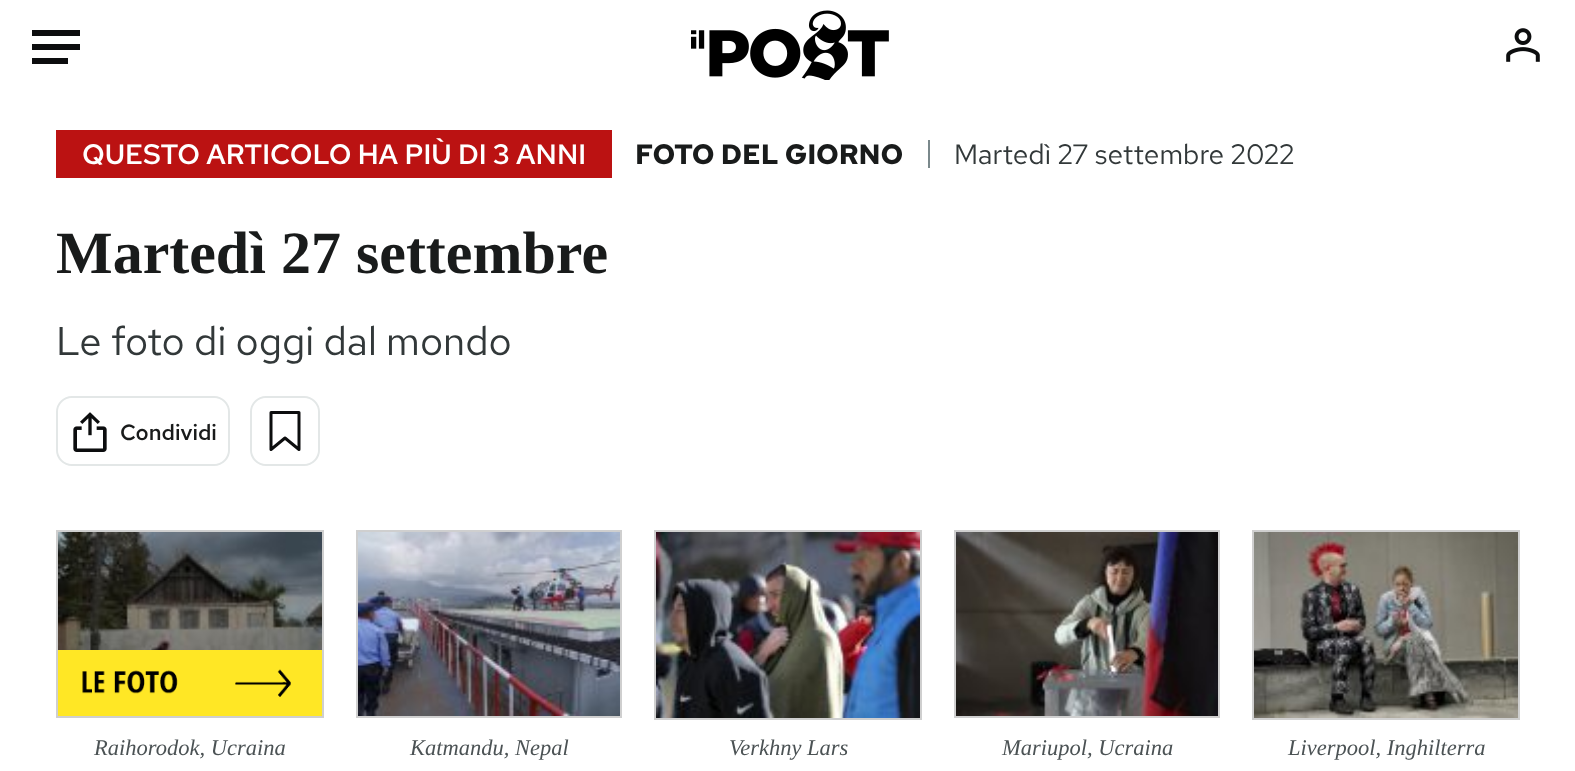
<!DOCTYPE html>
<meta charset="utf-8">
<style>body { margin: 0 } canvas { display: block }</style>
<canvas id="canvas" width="1575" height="771"></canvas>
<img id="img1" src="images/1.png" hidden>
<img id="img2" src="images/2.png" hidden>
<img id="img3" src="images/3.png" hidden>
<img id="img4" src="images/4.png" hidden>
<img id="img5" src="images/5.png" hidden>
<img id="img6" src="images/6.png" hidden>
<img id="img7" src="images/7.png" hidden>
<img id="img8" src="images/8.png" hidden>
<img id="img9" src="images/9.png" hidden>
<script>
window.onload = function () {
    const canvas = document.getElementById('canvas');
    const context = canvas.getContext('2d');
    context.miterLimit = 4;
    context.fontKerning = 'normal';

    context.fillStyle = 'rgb(255, 255, 255)';
    context.fillRect(0, 0, 1575, 771);
    context.fillStyle = 'rgb(12, 13, 14)';
    context.beginPath();
    context.moveTo(80, 44);
    context.lineTo(80, 50);
    context.lineTo(32, 50);
    context.lineTo(32, 44);
    context.closePath();
    context.moveTo(68, 58);
    context.lineTo(68, 64);
    context.lineTo(32, 64);
    context.lineTo(32, 58);
    context.closePath();
    context.moveTo(80, 30);
    context.lineTo(80, 36);
    context.lineTo(32, 36);
    context.lineTo(32, 30);
    context.closePath();
    context.fill();
    context.drawImage(document.getElementById('img1'), 691, 10, 198, 70);
    context.drawImage(document.getElementById('img2'), 1506, 28, 34, 34);
    context.fillStyle = 'rgb(187, 18, 18)';
    context.fillRect(56, 130, 556, 48);
    context.fillStyle = 'rgb(122, 136, 139)';
    context.fillRect(928, 140, 2, 28);
    context.beginPath();
    context.roundRect(57, 397, 172, 68, 15);
    context.strokeStyle = 'rgb(227, 231, 231)';
    context.lineWidth = 2;
    context.stroke();
    context.fillStyle = 'rgb(255, 255, 255)';
    context.beginPath();
    context.roundRect(58, 398, 170, 66, 16);
    context.fill();
    context.drawImage(document.getElementById('img3'), 73, 412, 34, 40);
    context.beginPath();
    context.roundRect(251, 397, 68, 68, 15);
    context.stroke();
    context.beginPath();
    context.roundRect(252, 398, 66, 66, 16);
    context.fill();
    context.beginPath();
    context.moveTo(271, 449.5);
    context.lineTo(271, 412.5);
    context.lineTo(299, 412.5);
    context.lineTo(299, 449.5);
    context.lineTo(285, 438);
    context.closePath();
    context.strokeStyle = 'rgb(12, 13, 14)';
    context.lineWidth = 3;
    context.lineJoin = 'round';
    context.stroke();
    context.strokeStyle = 'rgb(207, 207, 207)';
    context.lineWidth = 2;
    context.lineJoin = 'miter';
    context.strokeRect(57, 531, 266, 186);
    context.drawImage(document.getElementById('img4'), 58, 532, 264, 118);
    context.drawImage(document.getElementById('img5'), 58, 650, 264, 66);
    context.strokeRect(357, 531, 264, 186);
    context.drawImage(document.getElementById('img6'), 358, 532, 262, 184);
    context.strokeRect(655, 531, 266, 188);
    context.drawImage(document.getElementById('img7'), 656, 532, 264, 186);
    context.strokeRect(955, 531, 264, 186);
    context.drawImage(document.getElementById('img8'), 956, 532, 262, 184);
    context.strokeRect(1253, 531, 266, 188);
    context.drawImage(document.getElementById('img9'), 1254, 532, 264, 186);
    context.font = '600 28px Red Hat Text';
    context.fillText('QUESTO ARTICOLO HA PIÙ DI 3 ANNI', 82, 164);
    context.font = 'bold 28px Red Hat Text';
    context.fillStyle = 'rgb(25, 27, 27)';
    context.fillText('FOTO DEL GIORNO', 635, 164);
    context.font = '28px Red Hat Text';
    context.fillStyle = 'rgb(50, 56, 57)';
    context.fillText('Martedì 27 settembre 2022', 954, 164);
    context.font = 'bold 60px Liberation Serif';
    context.fillStyle = 'rgb(25, 27, 27)';
    context.fillText('Martedì 27 settembre', 56, 273);
    context.font = '40px Red Hat Text';
    context.fillStyle = 'rgb(50, 56, 57)';
    context.fillText('Le foto di oggi dal mondo', 56, 355);
    context.font = '600 22px Red Hat Text';
    context.fillStyle = 'rgb(25, 27, 27)';
    context.fillText('Condividi', 120, 440);
    context.font = 'italic 22.5px Liberation Serif';
    context.fillStyle = 'rgb(75, 82, 84)';
    context.fillText('Raihorodok, Ucraina', 94, 755);
    context.fillText('Katmandu, Nepal', 410, 755);
    context.fillText('Verkhny Lars', 729, 755);
    context.fillText('Mariupol, Ucraina', 1002, 755);
    context.fillText('Liverpool, Inghilterra', 1288, 755);
};
</script>
